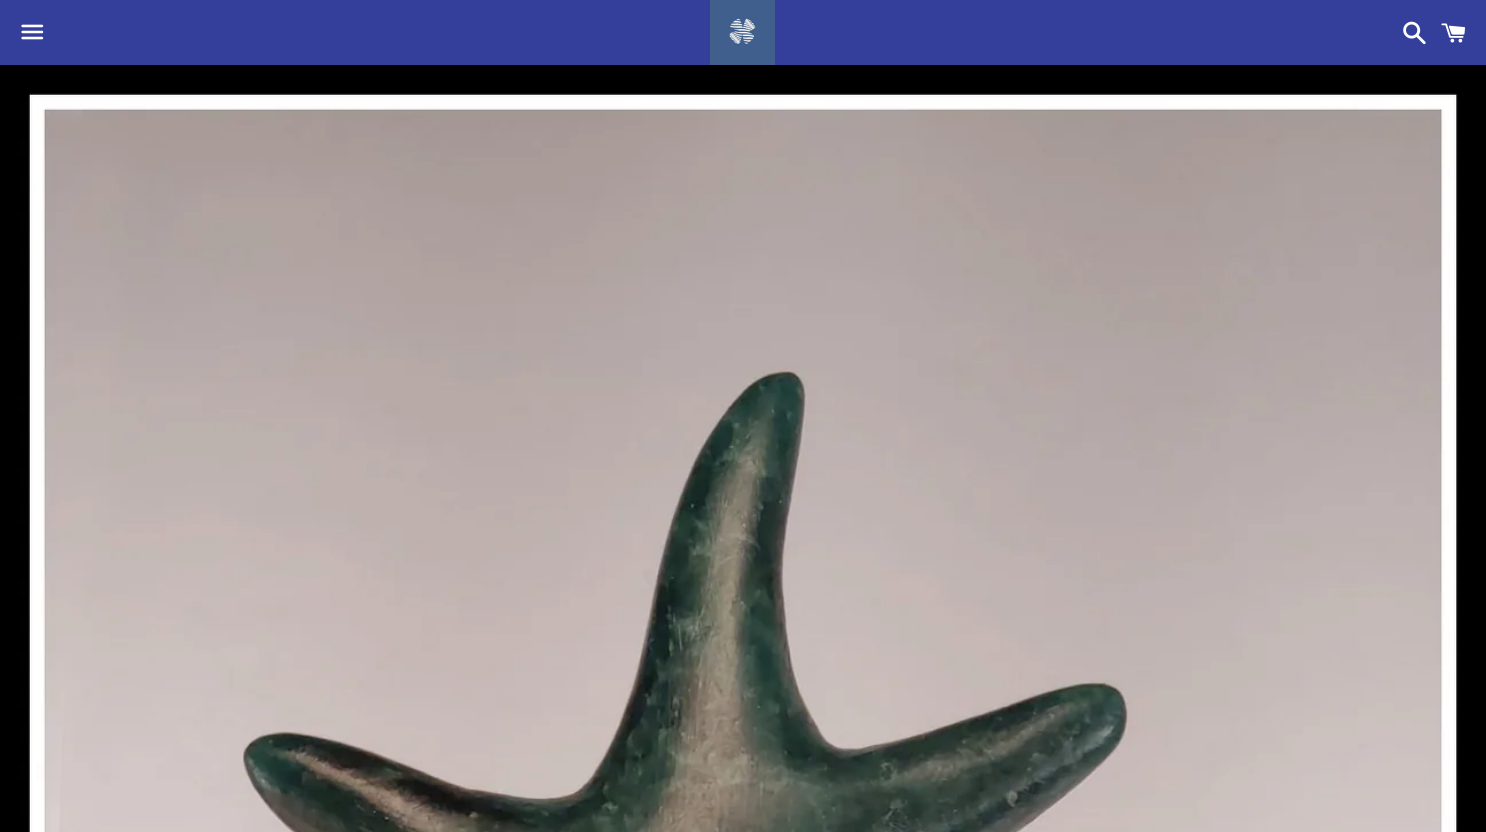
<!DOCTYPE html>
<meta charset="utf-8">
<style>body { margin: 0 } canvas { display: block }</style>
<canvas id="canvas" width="1486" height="832"></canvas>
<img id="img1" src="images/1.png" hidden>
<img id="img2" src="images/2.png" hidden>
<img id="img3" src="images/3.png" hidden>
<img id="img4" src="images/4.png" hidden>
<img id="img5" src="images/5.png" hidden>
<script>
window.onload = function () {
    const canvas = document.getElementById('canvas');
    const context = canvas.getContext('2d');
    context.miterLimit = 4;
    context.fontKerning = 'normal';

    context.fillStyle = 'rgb(255, 255, 255)';
    context.fillRect(0, 0, 1486, 832);
    context.fillStyle = 'rgb(52, 63, 155)';
    context.fillRect(0, 0, 1486, 65);
    context.drawImage(document.getElementById('img1'), 21, 24, 23, 16);
    context.drawImage(document.getElementById('img2'), 710, 0, 65, 65);
    context.drawImage(document.getElementById('img3'), 1403, 21, 23, 24);
    context.drawImage(document.getElementById('img4'), 1441, 23, 25, 20);
    context.drawImage(document.getElementById('img5'), 0, 65, 1486, 767);
};
</script>
